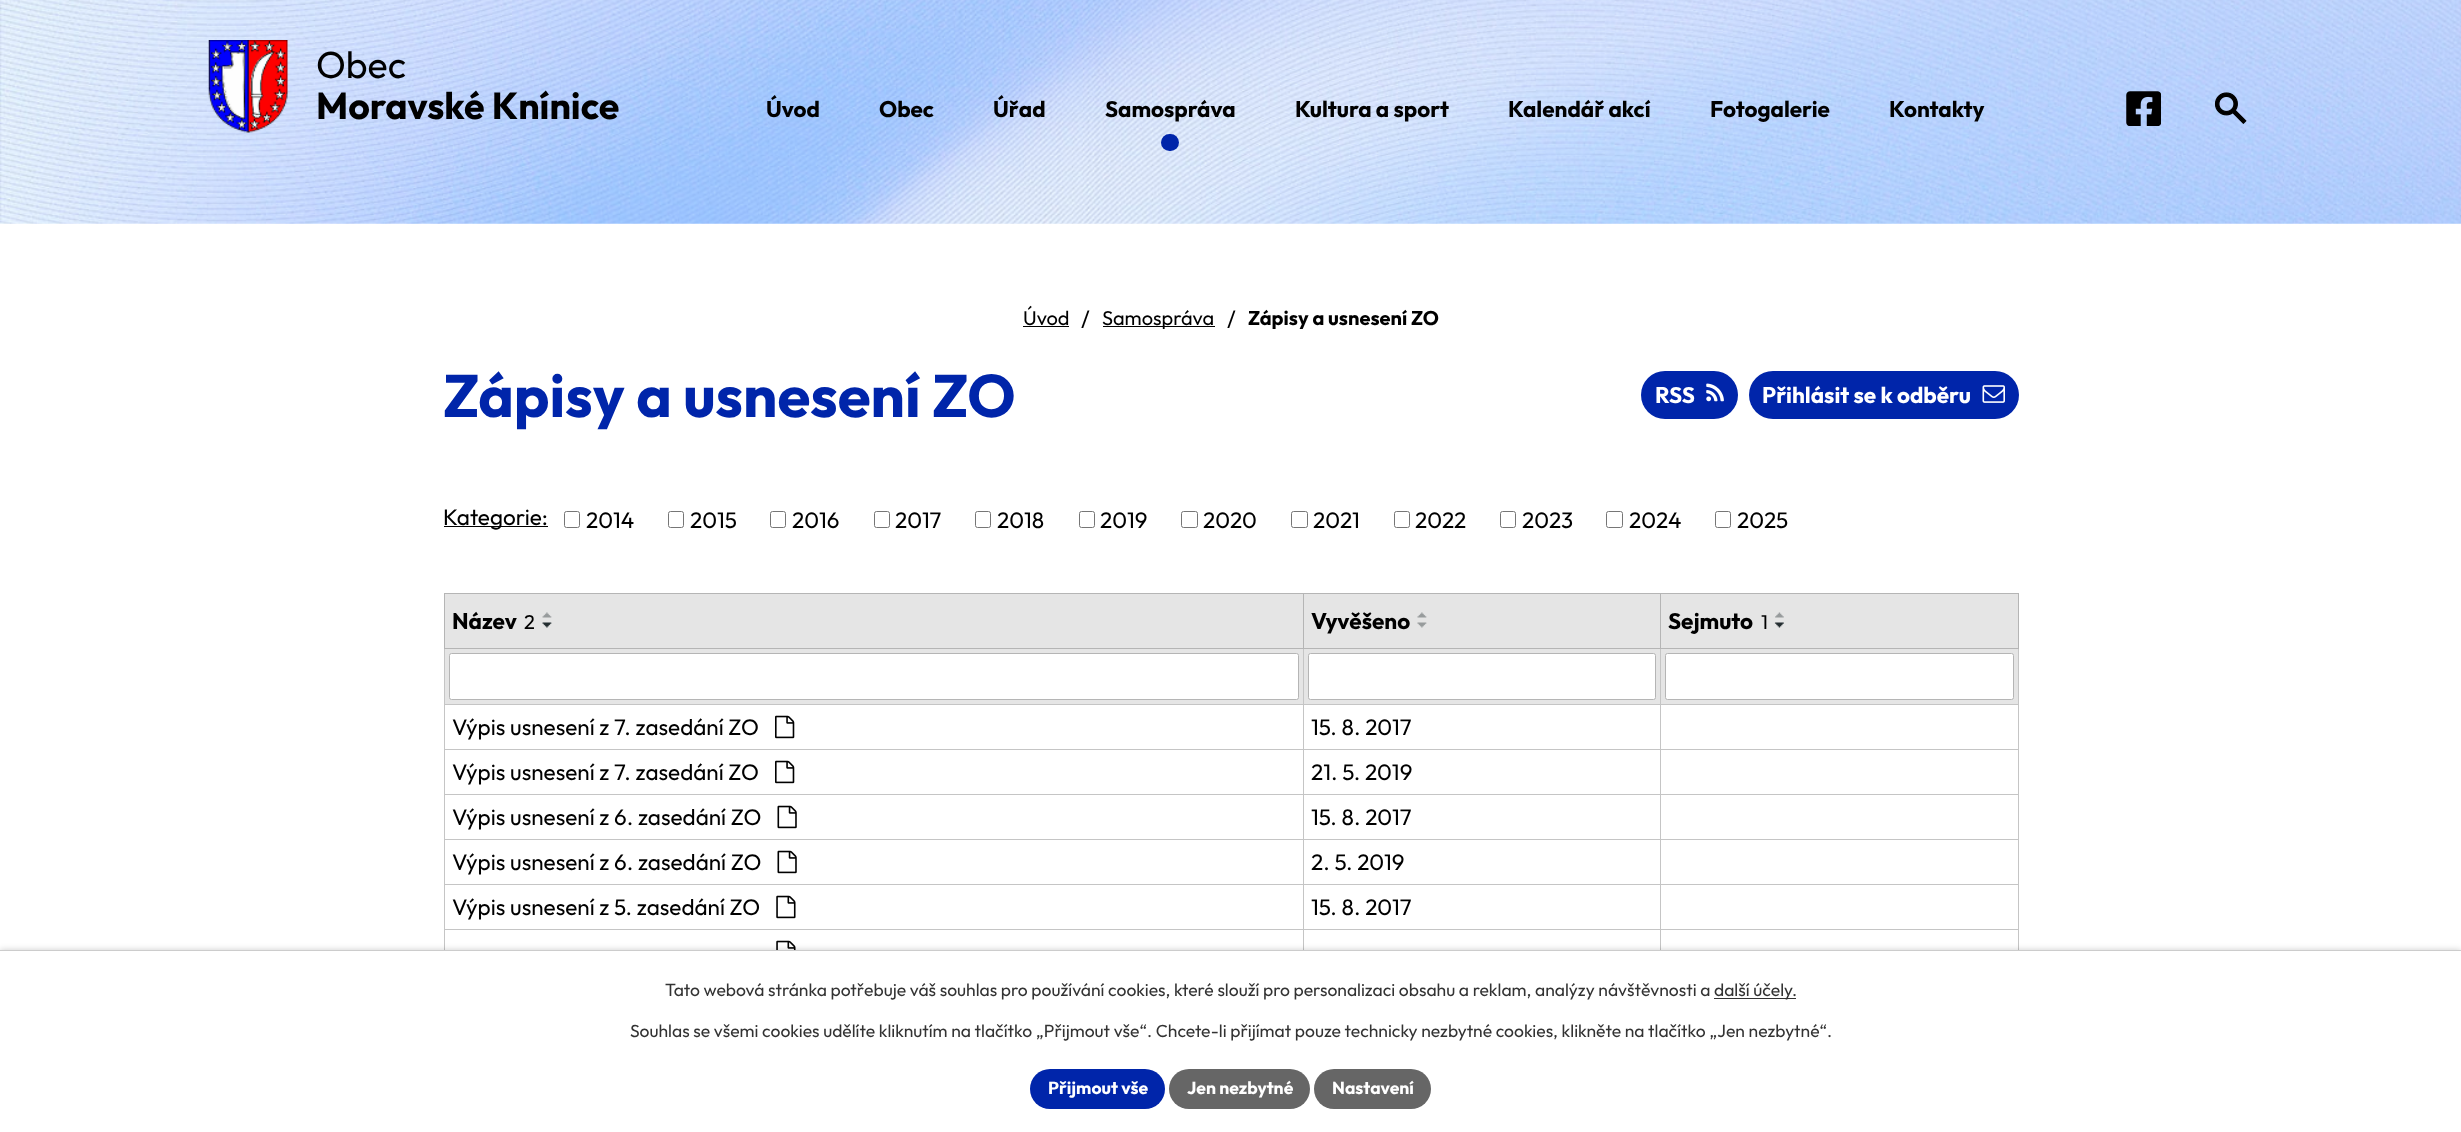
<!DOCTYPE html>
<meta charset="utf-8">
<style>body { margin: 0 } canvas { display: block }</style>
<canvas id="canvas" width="2461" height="1132"></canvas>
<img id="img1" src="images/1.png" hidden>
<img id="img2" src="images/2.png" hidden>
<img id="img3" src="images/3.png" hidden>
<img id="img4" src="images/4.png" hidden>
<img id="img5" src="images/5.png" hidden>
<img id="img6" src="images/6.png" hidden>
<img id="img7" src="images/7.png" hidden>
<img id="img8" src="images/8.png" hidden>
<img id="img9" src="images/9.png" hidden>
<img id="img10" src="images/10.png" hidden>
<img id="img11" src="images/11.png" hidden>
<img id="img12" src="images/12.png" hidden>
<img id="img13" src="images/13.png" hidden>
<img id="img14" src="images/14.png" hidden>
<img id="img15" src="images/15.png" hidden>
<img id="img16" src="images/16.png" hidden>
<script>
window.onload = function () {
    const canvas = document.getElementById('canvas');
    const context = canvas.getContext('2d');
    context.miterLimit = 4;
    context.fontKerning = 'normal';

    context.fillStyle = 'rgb(255, 255, 255)';
    context.fillRect(0, 0, 2461, 1132);
    context.drawImage(document.getElementById('img1'), 0, 0, 2461, 224);
    context.drawImage(document.getElementById('img2'), 208, 40, 80, 93);
    context.drawImage(document.getElementById('img3'), 2126, 91, 35, 35);
    context.drawImage(document.getElementById('img4'), 2214, 92, 33, 32);
    context.fillStyle = 'rgb(0, 37, 170)';
    context.beginPath();
    context.roundRect(1161, 134, 18, 17, 8.5);
    context.fill();
    context.fillStyle = 'rgb(0, 0, 0)';
    context.fillRect(1023, 326, 46, 1);
    context.fillRect(1103, 326, 112, 1);
    context.fillStyle = 'rgb(0, 37, 170)';
    context.beginPath();
    context.roundRect(1641, 371, 97, 48, 24);
    context.fill();
    context.drawImage(document.getElementById('img5'), 1706, 383, 18, 19);
    context.beginPath();
    context.roundRect(1749, 371, 270, 48, 24);
    context.fill();
    context.drawImage(document.getElementById('img6'), 1982, 385, 23, 18);
    context.fillStyle = 'rgb(0, 0, 0)';
    context.fillRect(444, 526, 104, 1);
    context.beginPath();
    context.roundRect(564.5, 511.5, 15, 16, 2);
    context.strokeStyle = 'rgb(118, 118, 118)';
    context.stroke();
    context.beginPath();
    context.roundRect(668.5, 511.5, 15, 16, 2);
    context.stroke();
    context.beginPath();
    context.roundRect(770.5, 511.5, 15, 16, 2);
    context.stroke();
    context.beginPath();
    context.roundRect(874.5, 511.5, 15, 16, 2);
    context.stroke();
    context.beginPath();
    context.roundRect(975.5, 511.5, 15, 16, 2);
    context.stroke();
    context.beginPath();
    context.roundRect(1079.5, 511.5, 15, 16, 2);
    context.stroke();
    context.beginPath();
    context.roundRect(1181.5, 511.5, 16, 16, 2);
    context.stroke();
    context.beginPath();
    context.roundRect(1291.5, 511.5, 16, 16, 2);
    context.stroke();
    context.beginPath();
    context.roundRect(1394.5, 511.5, 15, 16, 2);
    context.stroke();
    context.beginPath();
    context.roundRect(1500.5, 511.5, 15, 16, 2);
    context.stroke();
    context.beginPath();
    context.roundRect(1606.5, 511.5, 16, 16, 2);
    context.stroke();
    context.beginPath();
    context.roundRect(1715.5, 511.5, 15, 16, 2);
    context.stroke();
    context.fillStyle = 'rgb(229, 229, 229)';
    context.fillRect(445, 594, 858, 54);
    context.fillStyle = 'rgb(181, 181, 181)';
    context.fillRect(1660, 593, 359, 1);
    context.fillStyle = 'rgb(197, 197, 197)';
    context.fillRect(1660, 704, 359, 1);
    context.fillRect(1660, 749, 359, 1);
    context.fillRect(1660, 794, 359, 1);
    context.fillRect(1660, 839, 359, 1);
    context.fillRect(1660, 884, 359, 1);
    context.fillRect(1660, 929, 359, 1);
    context.fillRect(2018, 929, 1, 21);
    context.fillRect(2018, 884, 1, 46);
    context.fillRect(2018, 839, 1, 46);
    context.fillRect(2018, 794, 1, 46);
    context.fillRect(2018, 749, 1, 46);
    context.fillRect(2018, 648, 1, 102);
    context.fillStyle = 'rgb(181, 181, 181)';
    context.fillRect(2018, 593, 1, 56);
    context.fillStyle = 'rgb(229, 229, 229)';
    context.fillRect(445, 649, 1573, 55);
    context.fillStyle = 'rgb(197, 197, 197)';
    context.fillRect(1660, 929, 1, 21);
    context.fillRect(1303, 929, 358, 1);
    context.fillRect(1660, 884, 1, 46);
    context.fillRect(1303, 884, 358, 1);
    context.fillRect(1660, 839, 1, 46);
    context.fillRect(1303, 839, 358, 1);
    context.fillRect(1660, 794, 1, 46);
    context.fillRect(1303, 794, 358, 1);
    context.fillRect(1660, 749, 1, 46);
    context.fillRect(1303, 749, 358, 1);
    context.fillRect(1660, 704, 1, 46);
    context.fillRect(1303, 704, 358, 1);
    context.fillRect(1660, 648, 1, 57);
    context.fillStyle = 'rgb(181, 181, 181)';
    context.fillRect(1660, 648, 359, 1);
    context.fillRect(1660, 593, 1, 56);
    context.fillRect(1303, 593, 358, 1);
    context.fillStyle = 'rgb(197, 197, 197)';
    context.fillRect(1303, 929, 1, 21);
    context.fillRect(444, 929, 860, 1);
    context.fillRect(1303, 884, 1, 46);
    context.fillRect(444, 884, 860, 1);
    context.fillRect(1303, 839, 1, 46);
    context.fillRect(444, 839, 860, 1);
    context.fillRect(1303, 794, 1, 46);
    context.fillRect(444, 794, 860, 1);
    context.fillRect(1303, 749, 1, 46);
    context.fillRect(444, 749, 860, 1);
    context.fillRect(1303, 704, 1, 46);
    context.fillRect(444, 704, 860, 1);
    context.fillRect(1303, 648, 1, 57);
    context.fillStyle = 'rgb(181, 181, 181)';
    context.fillRect(1303, 648, 358, 1);
    context.fillRect(1303, 593, 1, 56);
    context.fillRect(444, 593, 860, 1);
    context.fillStyle = 'rgb(197, 197, 197)';
    context.fillRect(444, 929, 1, 21);
    context.fillRect(444, 884, 1, 46);
    context.fillRect(444, 839, 1, 46);
    context.fillRect(444, 794, 1, 46);
    context.fillRect(444, 749, 1, 46);
    context.fillRect(444, 648, 1, 102);
    context.fillStyle = 'rgb(181, 181, 181)';
    context.fillRect(444, 648, 860, 1);
    context.fillRect(444, 593, 1, 56);
    context.drawImage(document.getElementById('img7'), 542, 612, 10, 6);
    context.drawImage(document.getElementById('img8'), 542, 622, 10, 6);
    context.fillStyle = 'rgb(229, 229, 229)';
    context.fillRect(1304, 594, 356, 54);
    context.drawImage(document.getElementById('img9'), 1417, 612, 10, 6);
    context.drawImage(document.getElementById('img10'), 1417, 622, 10, 6);
    context.fillRect(1661, 594, 357, 54);
    context.drawImage(document.getElementById('img11'), 1775, 612, 9, 6);
    context.drawImage(document.getElementById('img12'), 1774, 622, 10, 6);
    context.fillStyle = 'rgb(255, 255, 255)';
    context.beginPath();
    context.roundRect(449.5, 653.5, 849, 46, 2);
    context.fill();
    context.strokeStyle = 'rgb(181, 181, 181)';
    context.stroke();
    context.beginPath();
    context.roundRect(1308.5, 653.5, 347, 46, 2);
    context.fill();
    context.stroke();
    context.beginPath();
    context.roundRect(1665.5, 653.5, 348, 46, 2);
    context.fill();
    context.stroke();
    context.drawImage(document.getElementById('img13'), 775, 715, 20, 24);
    context.drawImage(document.getElementById('img13'), 775, 760, 20, 24);
    context.drawImage(document.getElementById('img14'), 777, 805, 20, 24);
    context.drawImage(document.getElementById('img14'), 777, 850, 20, 24);
    context.drawImage(document.getElementById('img15'), 776, 895, 20, 24);
    context.drawImage(document.getElementById('img16'), 776, 940, 20, 10);
    context.fillStyle = 'rgba(0, 0, 0, 0.2)';
    context.filter = 'blur(3px)';
    context.beginPath();
    context.rect(0, 950, 2461, 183);
    context.fill();
    context.filter = 'none';
    context.fillStyle = 'rgb(255, 255, 255)';
    context.fillRect(0, 951, 2461, 181);
    context.fillStyle = 'rgb(204, 204, 204)';
    context.fillRect(0, 950, 2461, 1);
    context.fillStyle = 'rgb(51, 51, 51)';
    context.fillRect(1714, 998, 82, 1);
    context.fillStyle = 'rgb(0, 37, 170)';
    context.beginPath();
    context.roundRect(1030, 1069, 135, 40, 20);
    context.fill();
    context.fillStyle = 'rgb(102, 102, 102)';
    context.beginPath();
    context.roundRect(1169, 1069, 141, 40, 20);
    context.fill();
    context.beginPath();
    context.roundRect(1314, 1069, 117, 40, 20);
    context.fill();
    context.font = '37.5px Outfit';
    context.fillStyle = 'rgb(0, 0, 0)';
    context.fillText('Obec', 316, 78);
    context.font = 'bold 37.5px Outfit';
    context.fillText('Moravské Knínice', 316, 119);
    context.font = 'bold 22.5px Outfit';
    context.fillText('Úvod', 766, 117);
    context.fillText('Obec', 879, 117);
    context.fillText('Úřad', 993, 117);
    context.fillText('Samospráva', 1105, 117);
    context.fillText('Kultura a sport', 1295, 117);
    context.fillText('Kalendář akcí', 1508, 117);
    context.fillText('Fotogalerie', 1710, 117);
    context.fillText('Kontakty', 1889, 117);
    context.font = '20px Outfit';
    context.fillText('Úvod', 1023, 325);
    context.font = '22.5px Outfit';
    context.fillText('/', 1081, 327);
    context.font = '20px Outfit';
    context.fillText('Samospráva', 1102, 325);
    context.font = '22.5px Outfit';
    context.fillText('/', 1227, 327);
    context.font = 'bold 20px Outfit';
    context.fillText('Zápisy a usnesení ZO', 1248, 325);
    context.font = 'bold 60px Outfit';
    context.fillStyle = 'rgb(0, 37, 170)';
    context.fillText('Zápisy a usnesení ZO', 443, 417);
    context.font = 'bold 22.5px Outfit';
    context.fillStyle = 'rgb(255, 255, 255)';
    context.fillText('RSS', 1655, 403);
    context.fillText('Přihlásit se k odběru', 1762, 403);
    context.font = '22.5px Outfit';
    context.fillStyle = 'rgb(0, 0, 0)';
    context.fillText('Kategorie:', 443, 525);
    context.fillText('2014', 586, 528);
    context.fillText('2015', 690, 528);
    context.fillText('2016', 792, 528);
    context.fillText('2017', 895, 528);
    context.fillText('2018', 997, 528);
    context.fillText('2019', 1100, 528);
    context.fillText('2020', 1203, 528);
    context.fillText('2021', 1313, 528);
    context.fillText('2022', 1415, 528);
    context.fillText('2023', 1522, 528);
    context.fillText('2024', 1629, 528);
    context.fillText('2025', 1737, 528);
    context.font = 'bold 22.5px Outfit';
    context.fillText('Název', 452, 629);
    context.font = '20px Outfit';
    context.fillText('2', 524, 629);
    context.font = 'bold 22.5px Outfit';
    context.fillText('Vyvěšeno', 1311, 629);
    context.fillText('Sejmuto', 1668, 629);
    context.font = '20px Outfit';
    context.fillText('1', 1761, 629);
    context.font = '22.5px Outfit';
    context.fillText('Výpis usnesení z 7. zasedání ZO', 452, 735);
    context.fillText('15. 8. 2017', 1311, 735);
    context.fillText('Výpis usnesení z 7. zasedání ZO', 452, 780);
    context.fillText('21. 5. 2019', 1311, 780);
    context.fillText('Výpis usnesení z 6. zasedání ZO', 452, 825);
    context.fillText('15. 8. 2017', 1311, 825);
    context.fillText('Výpis usnesení z 6. zasedání ZO', 452, 870);
    context.fillText('2. 5. 2019', 1311, 870);
    context.fillText('Výpis usnesení z 5. zasedání ZO', 452, 915);
    context.fillText('15. 8. 2017', 1311, 915);
    context.font = '17.5px Outfit';
    context.fillStyle = 'rgb(51, 51, 51)';
    context.fillText('Tato webová stránka potřebuje váš souhlas pro používání cookies, které slouží pro personalizaci obsahu a reklam, analýzy návštěvnosti a', 665, 996);
    context.fillText('další účely.', 1714, 996);
    context.fillText('Souhlas se všemi cookies udělíte kliknutím na tlačítko „Přijmout vše“. Chcete-li přijímat pouze technicky nezbytné cookies, klikněte na tlačítko „Jen nezbytné“.', 630, 1037);
    context.font = 'bold 17.5px Outfit';
    context.fillStyle = 'rgb(255, 255, 255)';
    context.fillText('Přijmout vše', 1048, 1094);
    context.fillText('Jen nezbytné', 1187, 1094);
    context.fillText('Nastavení', 1332, 1094);
};
</script>
